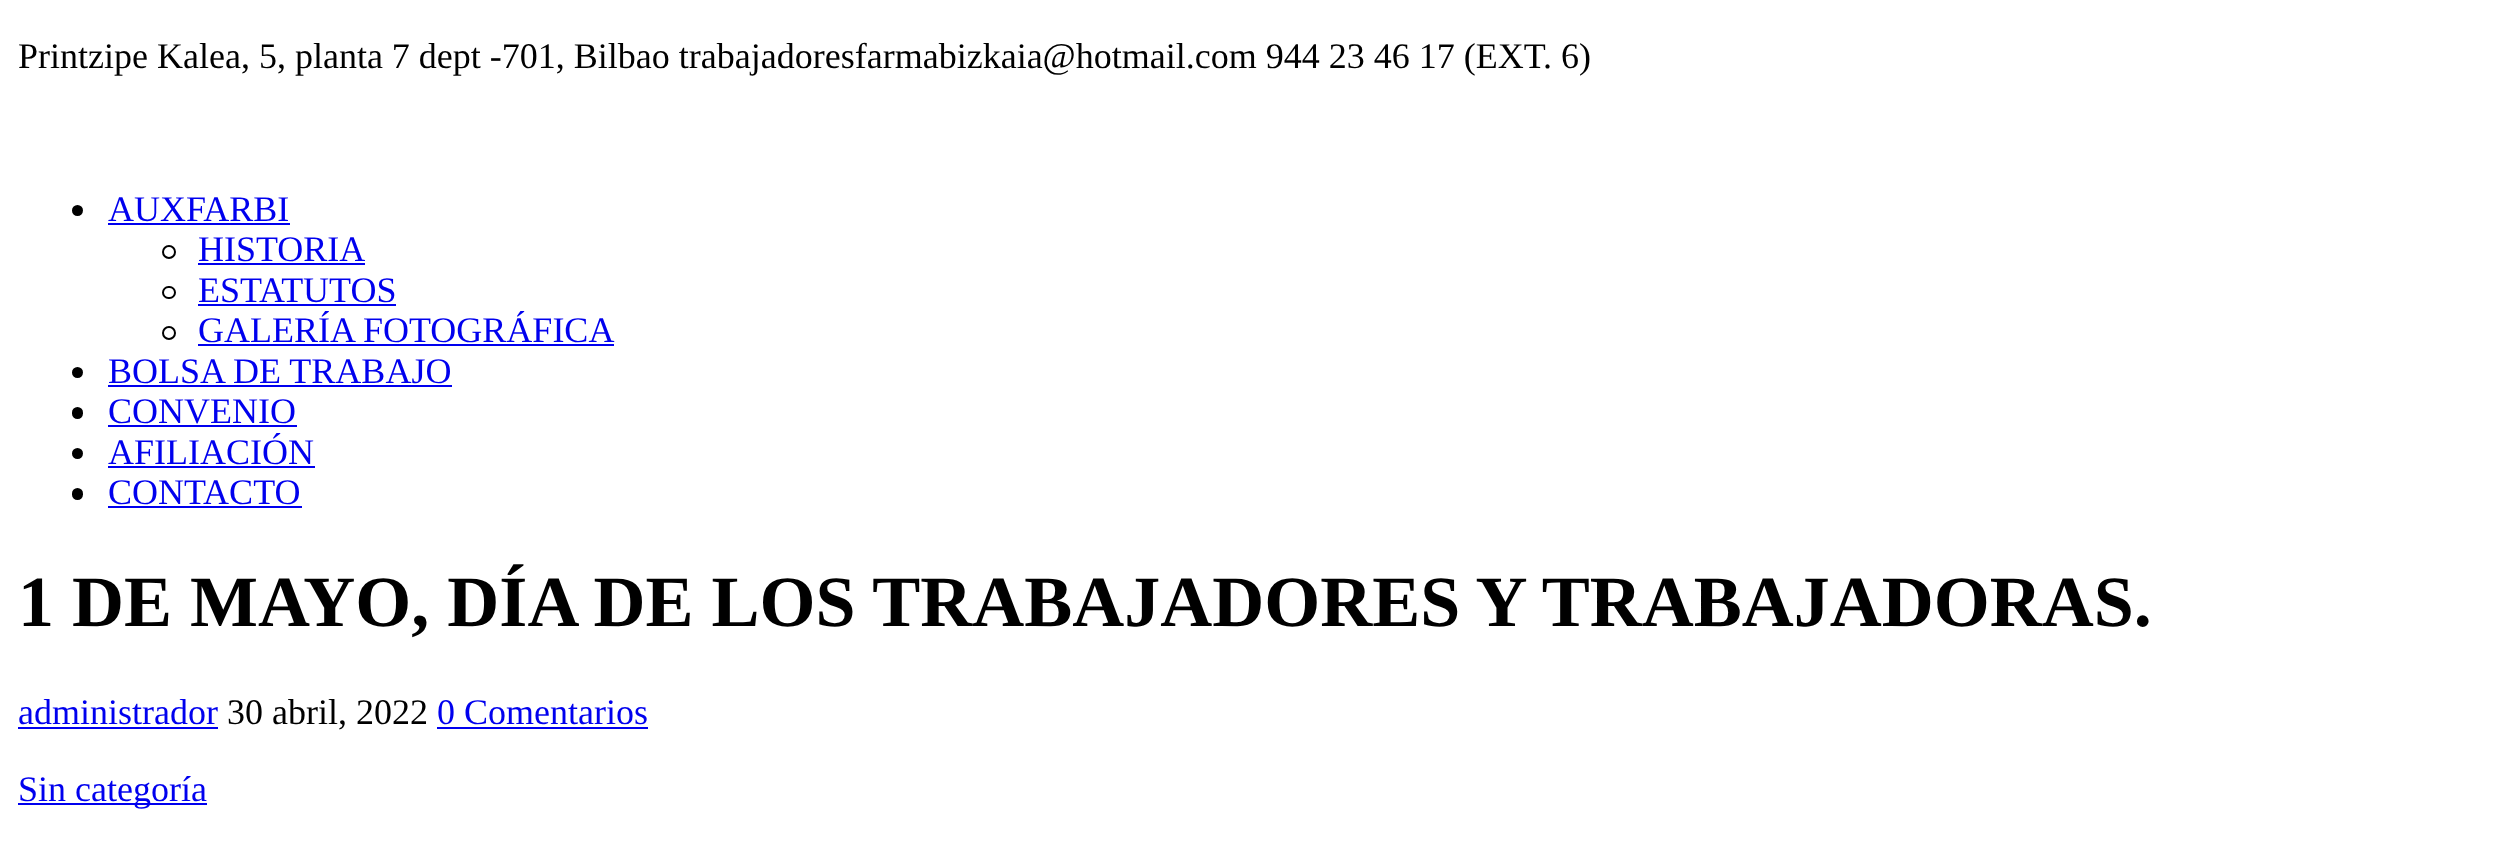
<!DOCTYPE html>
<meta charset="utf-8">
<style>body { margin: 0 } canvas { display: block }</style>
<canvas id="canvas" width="2509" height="848"></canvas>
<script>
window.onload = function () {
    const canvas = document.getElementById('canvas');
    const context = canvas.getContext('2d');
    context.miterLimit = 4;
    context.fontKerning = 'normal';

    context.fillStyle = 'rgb(255, 255, 255)';
    context.fillRect(0, 0, 2509, 848);
    context.fillStyle = 'rgb(0, 0, 0)';
    context.beginPath();
    context.arc(77.5, 210.5, 5.5, 0, 2 * Math.PI);
    context.fill();
    context.fillStyle = 'rgb(0, 0, 238)';
    context.fillRect(108, 223, 182, 2);
    context.beginPath();
    context.arc(169, 252, 6, 0, 2 * Math.PI);
    context.strokeStyle = 'rgb(0, 0, 0)';
    context.lineWidth = 2;
    context.stroke();
    context.fillRect(198, 263, 167, 2);
    context.beginPath();
    context.roundRect(163, 287, 12, 11, 5.5);
    context.stroke();
    context.fillRect(198, 304, 198, 2);
    context.beginPath();
    context.arc(169, 333, 6, 0, 2 * Math.PI);
    context.stroke();
    context.fillRect(198, 344, 416, 2);
    context.fillStyle = 'rgb(0, 0, 0)';
    context.beginPath();
    context.arc(77.5, 372.5, 5.5, 0, 2 * Math.PI);
    context.fill();
    context.fillStyle = 'rgb(0, 0, 238)';
    context.fillRect(108, 385, 344, 2);
    context.fillStyle = 'rgb(0, 0, 0)';
    context.beginPath();
    context.roundRect(72, 407, 11, 12, 5.5);
    context.fill();
    context.fillStyle = 'rgb(0, 0, 238)';
    context.fillRect(108, 425, 189, 2);
    context.fillStyle = 'rgb(0, 0, 0)';
    context.beginPath();
    context.arc(77.5, 453.5, 5.5, 0, 2 * Math.PI);
    context.fill();
    context.fillStyle = 'rgb(0, 0, 238)';
    context.fillRect(108, 466, 207, 2);
    context.fillStyle = 'rgb(0, 0, 0)';
    context.beginPath();
    context.roundRect(72, 488, 11, 12, 5.5);
    context.fill();
    context.fillStyle = 'rgb(0, 0, 238)';
    context.fillRect(108, 506, 194, 2);
    context.fillRect(18, 727, 200, 2);
    context.fillRect(437, 727, 211, 2);
    context.fillRect(18, 803, 189, 2);
    context.font = '36px Liberation Serif';
    context.fillStyle = 'rgb(0, 0, 0)';
    context.fillText('Printzipe Kalea, 5, planta 7 dept -701, Bilbao trabajadoresfarmabizkaia@hotmail.com 944 23 46 17 (EXT. 6)', 18, 68);
    context.fillStyle = 'rgb(0, 0, 238)';
    context.fillText('AUXFARBI', 108, 221);
    context.fillText('HISTORIA', 198, 261);
    context.fillText('ESTATUTOS', 198, 302);
    context.fillText('GALERÍA FOTOGRÁFICA', 198, 342);
    context.fillText('BOLSA DE TRABAJO', 108, 383);
    context.fillText('CONVENIO', 108, 423);
    context.fillText('AFILIACIÓN', 108, 464);
    context.fillText('CONTACTO', 108, 504);
    context.font = 'bold 72px Liberation Serif';
    context.fillStyle = 'rgb(0, 0, 0)';
    context.fillText('1 DE MAYO, DÍA DE LOS TRABAJADORES Y TRABAJADORAS.', 18, 626);
    context.font = '36px Liberation Serif';
    context.fillStyle = 'rgb(0, 0, 238)';
    context.fillText('administrador', 18, 724);
    context.fillStyle = 'rgb(0, 0, 0)';
    context.fillText('30 abril, 2022', 227, 724);
    context.fillStyle = 'rgb(0, 0, 238)';
    context.fillText('0 Comentarios', 437, 724);
    context.fillText('Sin categoría', 18, 801);
};
</script>
